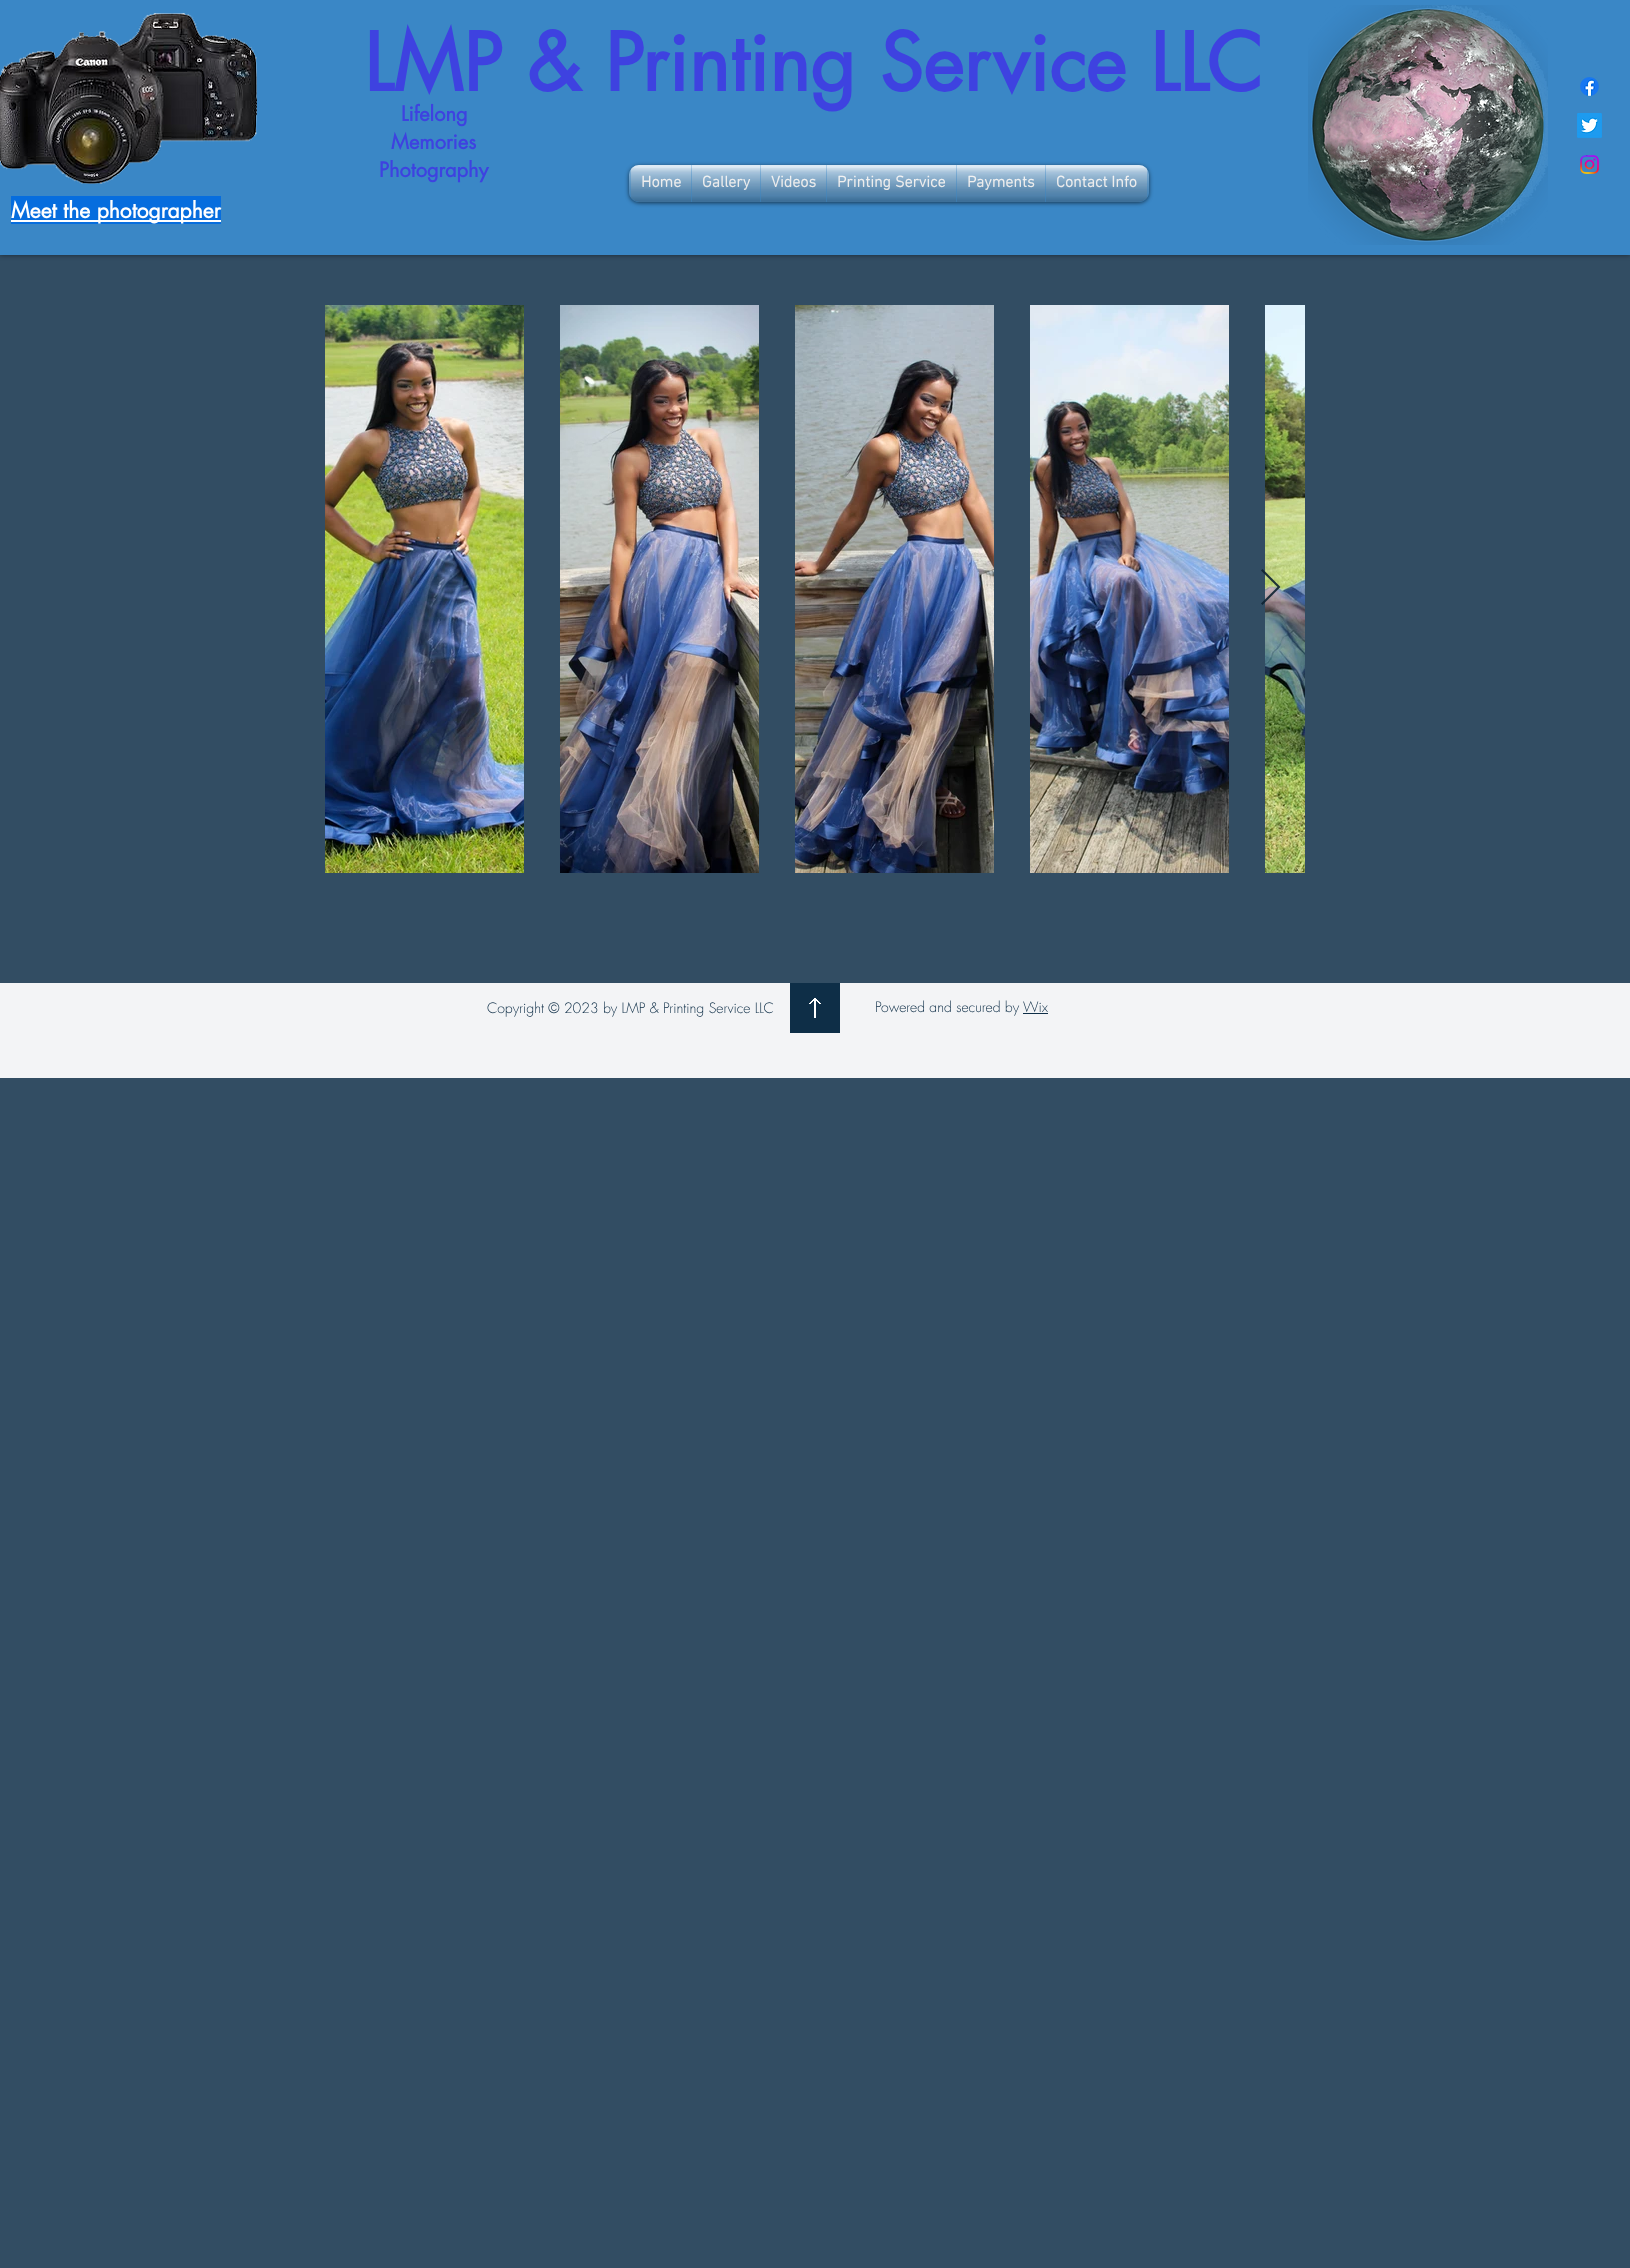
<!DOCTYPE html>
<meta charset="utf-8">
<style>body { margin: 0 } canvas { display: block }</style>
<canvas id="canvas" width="1630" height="2268"></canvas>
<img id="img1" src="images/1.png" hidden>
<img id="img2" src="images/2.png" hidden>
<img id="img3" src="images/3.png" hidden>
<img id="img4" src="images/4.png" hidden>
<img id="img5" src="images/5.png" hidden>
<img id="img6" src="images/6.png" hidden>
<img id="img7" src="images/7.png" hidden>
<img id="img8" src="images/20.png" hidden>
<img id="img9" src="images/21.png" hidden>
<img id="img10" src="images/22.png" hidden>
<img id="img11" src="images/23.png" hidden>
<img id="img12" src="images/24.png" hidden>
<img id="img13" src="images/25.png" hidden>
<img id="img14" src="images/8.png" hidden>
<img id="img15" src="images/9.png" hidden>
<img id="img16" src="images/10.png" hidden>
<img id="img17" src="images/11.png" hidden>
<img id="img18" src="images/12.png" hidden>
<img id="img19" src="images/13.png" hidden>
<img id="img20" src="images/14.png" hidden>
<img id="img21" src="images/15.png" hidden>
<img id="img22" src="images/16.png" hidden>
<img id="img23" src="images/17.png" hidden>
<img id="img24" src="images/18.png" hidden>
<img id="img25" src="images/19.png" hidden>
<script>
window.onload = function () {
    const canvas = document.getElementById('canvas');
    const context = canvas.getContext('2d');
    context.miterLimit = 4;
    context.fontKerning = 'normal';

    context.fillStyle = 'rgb(50, 77, 99)';
    context.fillRect(0, 0, 1630, 2268);
    context.fillStyle = 'rgba(0, 0, 0, 0.5)';
    context.filter = 'blur(2.5px)';
    context.beginPath();
    context.rect(0, 0, 1630, 255);
    context.fill();
    context.filter = 'none';
    context.fillStyle = 'rgb(58, 135, 198)';
    context.fillRect(0, 0, 1630, 255);
    context.drawImage(document.getElementById('img1'), 0, 13, 257, 171);
    context.drawImage(document.getElementById('img2'), 1308, 5, 240, 240);
    context.drawImage(document.getElementById('img3'), 1580, 77, 19, 19);
    context.drawImage(document.getElementById('img4'), 1577, 113, 25, 25);
    context.drawImage(document.getElementById('img5'), 1580, 155, 19, 19);
    context.save();
    context.beginPath();
    context.moveTo(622, 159);
    context.lineTo(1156, 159);
    context.lineTo(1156, 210);
    context.lineTo(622, 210);
    context.closePath();
    context.moveTo(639, 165);
    context.lineTo(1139, 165);
    context.bezierCurveTo(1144.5, 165, 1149, 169.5, 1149, 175);
    context.lineTo(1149, 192);
    context.bezierCurveTo(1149, 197.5, 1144.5, 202, 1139, 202);
    context.lineTo(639, 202);
    context.bezierCurveTo(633.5, 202, 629, 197.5, 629, 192);
    context.lineTo(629, 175);
    context.bezierCurveTo(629, 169.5, 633.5, 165, 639, 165);
    context.closePath();
    context.clip('evenodd');
    context.fillStyle = 'rgba(0, 0, 0, 0.6)';
    context.filter = 'blur(2px)';
    context.beginPath();
    context.roundRect(629, 166, 520, 37, 10);
    context.fill();
    context.filter = 'none';
    context.restore();
    context.drawImage(document.getElementById('img6'), 629, 165, 520, 37);
    context.drawImage(document.getElementById('img7'), 629, 168, 520, 34);
    context.fillStyle = 'rgb(6, 109, 222)';
    context.fillRect(11, 196, 210, 28);
    context.fillStyle = 'rgb(255, 255, 255)';
    context.fillRect(11, 220, 210, 2);
    context.drawImage(document.getElementById('img8'), 325, 305, 199, 568);
    context.drawImage(document.getElementById('img9'), 560, 305, 199, 568);
    context.drawImage(document.getElementById('img10'), 795, 305, 199, 568);
    context.drawImage(document.getElementById('img11'), 1030, 305, 199, 568);
    context.drawImage(document.getElementById('img12'), 1265, 305, 40, 568);
    context.fillStyle = 'rgba(13, 33, 48, 0.9)';
    context.beginPath();
    context.moveTo(1261, 570.5);
    context.lineTo(1262.5, 569);
    context.lineTo(1280.5, 587);
    context.lineTo(1262.5, 605);
    context.lineTo(1261, 603.5);
    context.lineTo(1277.5, 587);
    context.closePath();
    context.fill();
    context.fillStyle = 'rgb(243, 244, 246)';
    context.fillRect(0, 983, 1630, 95);
    context.drawImage(document.getElementById('img13'), 790, 983, 50, 50);
    context.fillStyle = 'rgb(14, 46, 71)';
    context.fillRect(1023, 1013, 25, 1);
    context.font = 'bold 78px futura';
    context.fillStyle = 'rgb(62, 66, 224)';
    context.fillText('LMP & Printing Service LLC', 364, 91);
    context.font = 'bold 20px futura';
    context.fillText('Lifelong', 401, 121);
    context.fillText('Memories', 391, 149);
    context.fillText('Photography', 379, 177);
    context.font = 'bold 16px "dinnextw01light"';
    context.fillStyle = 'rgb(255, 255, 255)';
    context.fillText('Home', 641, 187);
    context.drawImage(document.getElementById('img14'), 631, 165, 60, 37);
    context.drawImage(document.getElementById('img15'), 631, 168, 60, 34);
    context.fillText('Gallery', 702, 187);
    context.drawImage(document.getElementById('img16'), 692, 165, 68, 37);
    context.drawImage(document.getElementById('img17'), 692, 168, 68, 34);
    context.fillText('Videos', 771, 187);
    context.drawImage(document.getElementById('img18'), 761, 165, 65, 37);
    context.drawImage(document.getElementById('img19'), 761, 168, 65, 34);
    context.fillText('Printing Service', 837, 187);
    context.drawImage(document.getElementById('img20'), 827, 165, 129, 37);
    context.drawImage(document.getElementById('img21'), 827, 168, 129, 34);
    context.fillText('Payments', 967, 187);
    context.drawImage(document.getElementById('img22'), 957, 165, 88, 37);
    context.drawImage(document.getElementById('img23'), 957, 168, 88, 34);
    context.fillText('Contact Info', 1056, 187);
    context.drawImage(document.getElementById('img24'), 1046, 165, 101, 37);
    context.drawImage(document.getElementById('img25'), 1046, 168, 101, 34);
    context.font = 'bold 21px futura';
    context.fillText('Meet the photographer', 11, 218);
    context.font = '300 14px futura';
    context.fillStyle = 'rgb(14, 46, 71)';
    context.fillText('Copyright © 2023 by LMP & Printing Service LLC', 487, 1013);
    context.fillText('Powered and secured by Wix', 875, 1012);
};
</script>
